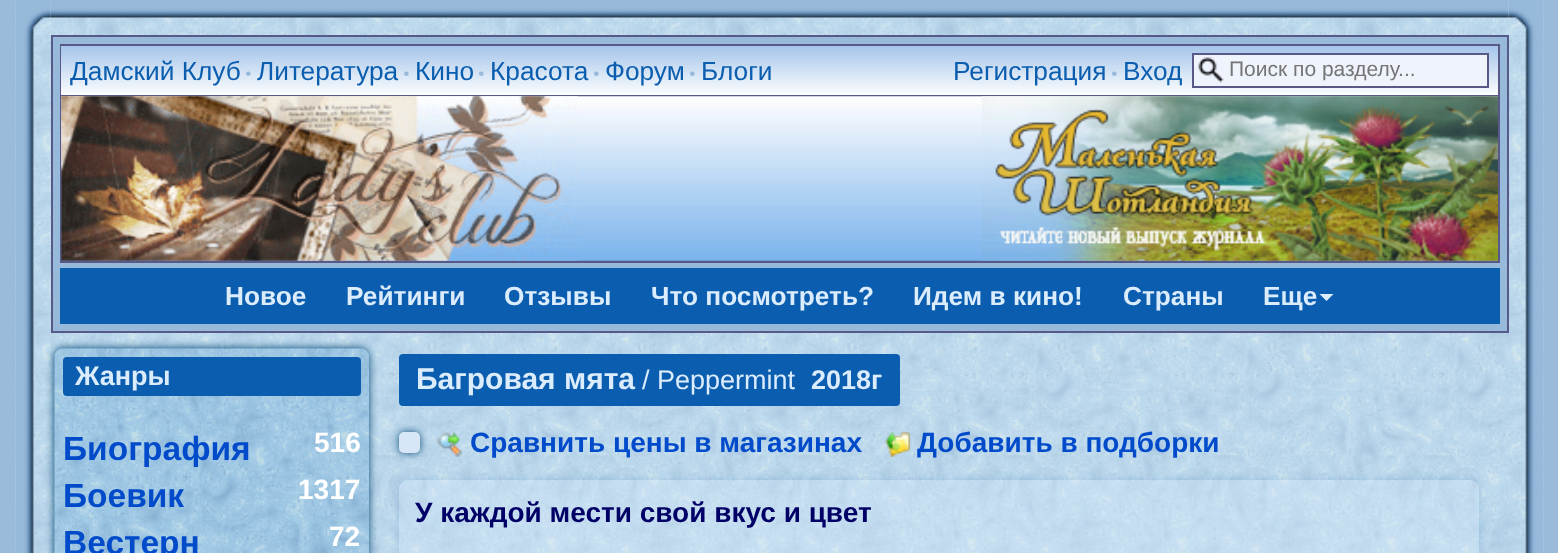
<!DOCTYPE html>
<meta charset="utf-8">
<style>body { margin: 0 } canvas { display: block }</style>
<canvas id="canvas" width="1558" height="553"></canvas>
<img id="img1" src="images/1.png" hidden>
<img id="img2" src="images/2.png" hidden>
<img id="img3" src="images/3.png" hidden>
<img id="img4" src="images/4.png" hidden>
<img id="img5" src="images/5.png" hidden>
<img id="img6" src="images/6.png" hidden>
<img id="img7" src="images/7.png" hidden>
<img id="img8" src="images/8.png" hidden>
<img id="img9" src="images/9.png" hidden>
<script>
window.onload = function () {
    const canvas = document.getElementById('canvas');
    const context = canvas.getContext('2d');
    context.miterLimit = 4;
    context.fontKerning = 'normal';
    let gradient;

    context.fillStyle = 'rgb(155, 187, 218)';
    context.fillRect(0, 0, 1558, 553);
    context.drawImage(document.getElementById('img1'), 15, 0, 1529, 553);
    context.drawImage(document.getElementById('img2'), 16, 0, 1528, 553);
    context.fillStyle = 'rgb(151, 185, 218)';
    context.beginPath();
    context.rect(52, 36, 1456, 296);
    context.fill();
    context.strokeStyle = 'rgb(88, 88, 137)';
    context.lineWidth = 2;
    context.stroke();
    context.fillStyle = 'rgb(88, 88, 137)';
    context.fillRect(60, 44, 1440, 219);
    gradient = context.createLinearGradient(780, 45, 780, 95);
    gradient.addColorStop(0, 'rgb(163, 196, 234)');
    gradient.addColorStop(1, 'rgb(252, 253, 254)');
    context.fillStyle = gradient;
    context.fillRect(61, 46, 1437, 49);
    context.fillStyle = 'rgb(239, 243, 252)';
    context.fillRect(1194, 55, 293, 31);
    context.drawImage(document.getElementById('img3'), 1198, 57, 26, 26);
    context.strokeRect(1193, 54, 295, 33);
    context.drawImage(document.getElementById('img4'), 61, 96, 1437, 165);
    context.drawImage(document.getElementById('img5'), 61, 96, 517, 165);
    context.drawImage(document.getElementById('img6'), 982, 96, 516, 165);
    context.fillStyle = 'rgb(10, 93, 175)';
    context.fillRect(60, 268, 1440, 56);
    context.fillStyle = 'rgb(219, 236, 252)';
    context.beginPath();
    context.moveTo(1319.5, 294);
    context.lineTo(1333.5, 294);
    context.lineTo(1326.5, 301);
    context.closePath();
    context.fill();
    context.fillStyle = 'rgb(3, 71, 117)';
    context.filter = 'blur(4.5px)';
    context.beginPath();
    context.roundRect(54, 348, 315, 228, 9);
    context.fill();
    context.filter = 'none';
    context.drawImage(document.getElementById('img7'), 54, 348, 315, 205);
    context.fillStyle = 'rgb(10, 93, 175)';
    context.beginPath();
    context.roundRect(63, 357, 298, 39, 4);
    context.fill();
    context.beginPath();
    context.roundRect(399, 354, 501, 52, 4);
    context.fill();
    context.fillStyle = 'rgb(3, 71, 117)';
    context.filter = 'blur(4.5px)';
    context.beginPath();
    context.roundRect(399, 432, 21, 21, 5);
    context.fill();
    context.filter = 'none';
    context.fillStyle = 'rgb(215, 231, 247)';
    context.beginPath();
    context.roundRect(399, 432, 21, 21, 5);
    context.fill();
    context.drawImage(document.getElementById('img8'), 437, 432, 25, 25);
    context.drawImage(document.getElementById('img9'), 885, 432, 25, 25);
    context.save();
    context.beginPath();
    context.moveTo(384, 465);
    context.lineTo(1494, 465);
    context.lineTo(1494, 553);
    context.lineTo(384, 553);
    context.closePath();
    context.moveTo(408, 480);
    context.lineTo(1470, 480);
    context.bezierCurveTo(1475, 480, 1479, 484, 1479, 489);
    context.lineTo(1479, 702);
    context.bezierCurveTo(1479, 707, 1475, 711, 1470, 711);
    context.lineTo(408, 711);
    context.bezierCurveTo(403, 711, 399, 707, 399, 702);
    context.lineTo(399, 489);
    context.bezierCurveTo(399, 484, 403, 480, 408, 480);
    context.closePath();
    context.clip('evenodd');
    context.fillStyle = 'rgba(10, 93, 175, 0.2)';
    context.filter = 'blur(4.5px)';
    context.beginPath();
    context.roundRect(399, 480, 1080, 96, 9);
    context.fill();
    context.filter = 'none';
    context.restore();
    context.fillStyle = 'rgba(219, 236, 252, 0.3)';
    context.beginPath();
    context.roundRect(399, 480, 1080, 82, 9);
    context.fill();
    context.font = '26.25px Liberation Sans';
    context.fillStyle = 'rgb(10, 93, 175)';
    context.fillText('Дамский Клуб', 70, 80);
    context.font = '19px Liberation Serif';
    context.fillStyle = 'rgb(151, 185, 218)';
    context.fillText('•', 245, 80);
    context.font = '26.25px Liberation Sans';
    context.fillStyle = 'rgb(10, 93, 175)';
    context.fillText('Литература', 257, 80);
    context.font = '19px Liberation Serif';
    context.fillStyle = 'rgb(151, 185, 218)';
    context.fillText('•', 403, 80);
    context.font = '26.25px Liberation Sans';
    context.fillStyle = 'rgb(10, 93, 175)';
    context.fillText('Кино', 415, 80);
    context.font = '19px Liberation Serif';
    context.fillStyle = 'rgb(151, 185, 218)';
    context.fillText('•', 478, 80);
    context.font = '26.25px Liberation Sans';
    context.fillStyle = 'rgb(10, 93, 175)';
    context.fillText('Красота', 490, 80);
    context.font = '19px Liberation Serif';
    context.fillStyle = 'rgb(151, 185, 218)';
    context.fillText('•', 593, 80);
    context.font = '26.25px Liberation Sans';
    context.fillStyle = 'rgb(10, 93, 175)';
    context.fillText('Форум', 605, 80);
    context.font = '19px Liberation Serif';
    context.fillStyle = 'rgb(151, 185, 218)';
    context.fillText('•', 689, 80);
    context.font = '26.25px Liberation Sans';
    context.fillStyle = 'rgb(10, 93, 175)';
    context.fillText('Блоги', 701, 80);
    context.fillText('Регистрация', 953, 80);
    context.font = '19px Liberation Serif';
    context.fillStyle = 'rgb(151, 185, 218)';
    context.fillText('•', 1111, 80);
    context.font = '26.25px Liberation Sans';
    context.fillStyle = 'rgb(10, 93, 175)';
    context.fillText('Вход', 1123, 80);
    context.font = '21px Liberation Sans';
    context.fillStyle = 'rgb(117, 117, 117)';
    context.fillText('Поиск по разделу...', 1229, 76);
    context.font = 'bold 26.25px Liberation Sans';
    context.fillStyle = 'rgb(219, 236, 252)';
    context.fillText('Новое', 225, 305);
    context.fillText('Рейтинги', 346, 305);
    context.fillText('Отзывы', 504, 305);
    context.fillText('Что посмотреть?', 651, 305);
    context.fillText('Идем в кино!', 913, 305);
    context.fillText('Страны', 1123, 305);
    context.fillText('Еще', 1263, 305);
    context.font = 'bold 27px Liberation Sans';
    context.fillText('Жанры', 75, 385);
    context.font = 'bold 33.5px Liberation Sans';
    context.fillStyle = 'rgb(1, 75, 203)';
    context.fillText('Биография', 63, 460);
    context.font = 'bold 28px Liberation Sans';
    context.fillStyle = 'rgb(255, 255, 255)';
    context.fillText('516', 314, 452);
    context.font = 'bold 33.5px Liberation Sans';
    context.fillStyle = 'rgb(1, 75, 203)';
    context.fillText('Боевик', 63, 507);
    context.font = 'bold 28px Liberation Sans';
    context.fillStyle = 'rgb(255, 255, 255)';
    context.fillText('1317', 298, 499);
    context.font = 'bold 33.5px Liberation Sans';
    context.fillStyle = 'rgb(1, 75, 203)';
    context.fillText('Вестерн', 63, 554);
    context.font = 'bold 28px Liberation Sans';
    context.fillStyle = 'rgb(255, 255, 255)';
    context.fillText('72', 329, 546);
    context.font = 'bold 30px Liberation Sans';
    context.fillStyle = 'rgb(219, 236, 252)';
    context.fillText('Багровая мята', 416, 389);
    context.font = '27px Liberation Sans';
    context.fillText('/ Peppermint', 642, 389);
    context.font = 'bold 27px Liberation Sans';
    context.fillText('2018г', 811, 389);
    context.font = 'bold 28px Liberation Sans';
    context.fillStyle = 'rgb(1, 75, 203)';
    context.fillText('Сравнить цены в магазинах', 470, 452);
    context.fillText('Добавить в подборки', 917, 452);
    context.fillStyle = 'rgb(0, 0, 102)';
    context.fillText('У каждой мести свой вкус и цвет', 415, 522);
};
</script>
